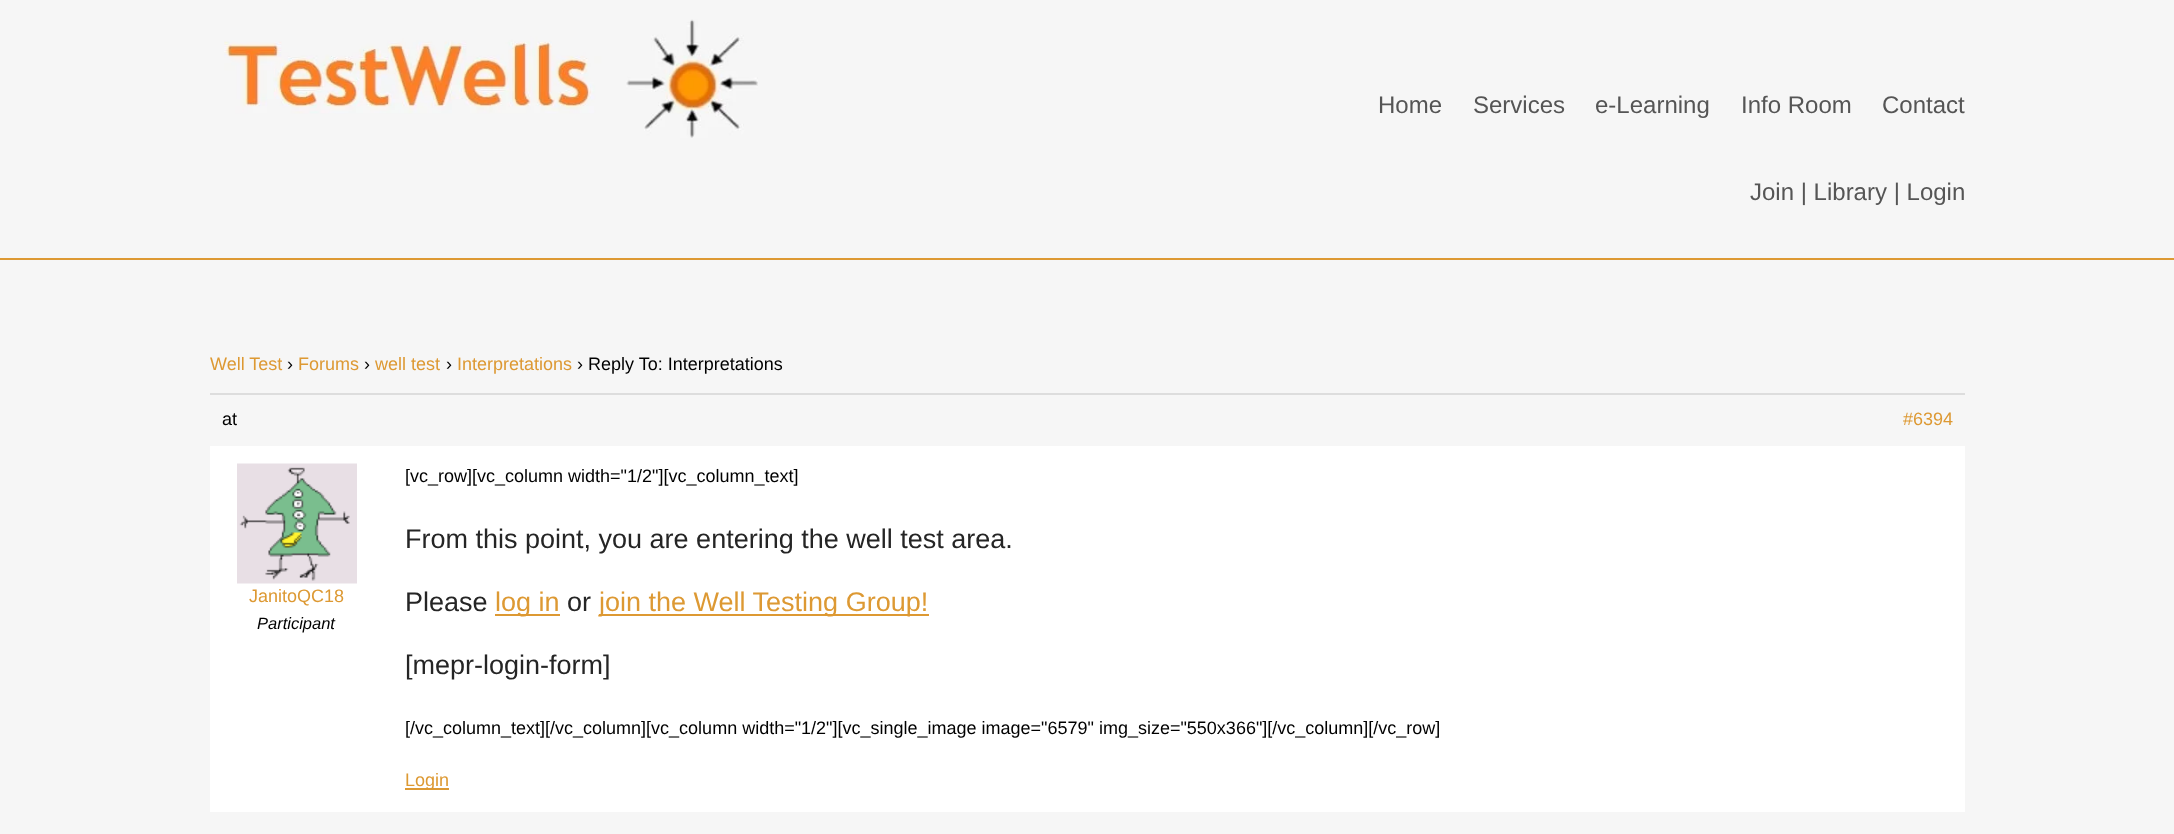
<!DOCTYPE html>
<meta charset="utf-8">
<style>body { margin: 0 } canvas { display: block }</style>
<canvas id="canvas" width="2174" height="834"></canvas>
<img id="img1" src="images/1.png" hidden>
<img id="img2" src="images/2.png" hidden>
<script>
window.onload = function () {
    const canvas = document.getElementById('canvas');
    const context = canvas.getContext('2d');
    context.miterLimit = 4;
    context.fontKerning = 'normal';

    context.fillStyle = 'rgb(246, 246, 246)';
    context.fillRect(0, 0, 2174, 834);
    context.drawImage(document.getElementById('img1'), 224, 19, 534, 119);
    context.fillStyle = 'rgb(221, 153, 51)';
    context.fillRect(0, 258, 2174, 2);
    context.fillStyle = 'rgb(221, 221, 221)';
    context.fillRect(210, 393, 1755, 2);
    context.fillStyle = 'rgb(255, 255, 255)';
    context.fillRect(210, 446, 1755, 366);
    context.drawImage(document.getElementById('img2'), 237, 463, 120, 121);
    context.fillStyle = 'rgb(221, 153, 51)';
    context.fillRect(495, 614, 65, 2);
    context.fillRect(599, 614, 330, 2);
    context.fillRect(405, 788, 44, 2);
    context.font = '24px Liberation Sans';
    context.fillStyle = 'rgb(85, 85, 85)';
    context.fillText('Home', 1378, 113);
    context.fillText('Services', 1473, 113);
    context.fillText('e-Learning', 1595, 113);
    context.fillText('Info Room', 1741, 113);
    context.fillText('Contact', 1882, 113);
    context.fillText('Join | Library | Login', 1750, 200);
    context.font = '18px Liberation Sans';
    context.fillStyle = 'rgb(221, 153, 51)';
    context.fillText('Well Test', 210, 370);
    context.fillStyle = 'rgb(0, 0, 0)';
    context.fillText('›', 287, 370);
    context.fillStyle = 'rgb(221, 153, 51)';
    context.fillText('Forums', 298, 370);
    context.fillStyle = 'rgb(0, 0, 0)';
    context.fillText('›', 364, 370);
    context.fillStyle = 'rgb(221, 153, 51)';
    context.fillText('well test', 375, 370);
    context.fillStyle = 'rgb(0, 0, 0)';
    context.fillText('›', 446, 370);
    context.fillStyle = 'rgb(221, 153, 51)';
    context.fillText('Interpretations', 457, 370);
    context.fillStyle = 'rgb(0, 0, 0)';
    context.fillText('› Reply To: Interpretations', 577, 370);
    context.fillText('at', 222, 425);
    context.fillStyle = 'rgb(221, 153, 51)';
    context.fillText('#6394', 1903, 425);
    context.fillText('JanitoQC18', 249, 602);
    context.font = 'italic 16.5px Liberation Sans';
    context.fillStyle = 'rgb(0, 0, 0)';
    context.fillText('Participant', 257, 629);
    context.font = '18px Liberation Sans';
    context.fillText('[vc_row][vc_column width="1/2"][vc_column_text]', 405, 482);
    context.font = '27px Liberation Sans';
    context.fillStyle = 'rgb(37, 37, 37)';
    context.fillText('From this point, you are entering the well test area.', 405, 548);
    context.fillText('Please', 405, 611);
    context.fillStyle = 'rgb(221, 153, 51)';
    context.fillText('log in', 495, 611);
    context.fillStyle = 'rgb(37, 37, 37)';
    context.fillText('or', 567, 611);
    context.fillStyle = 'rgb(221, 153, 51)';
    context.fillText('join the Well Testing Group!', 599, 611);
    context.fillStyle = 'rgb(37, 37, 37)';
    context.fillText('[mepr-login-form]', 405, 674);
    context.font = '18px Liberation Sans';
    context.fillStyle = 'rgb(0, 0, 0)';
    context.fillText('[/vc_column_text][/vc_column][vc_column width="1/2"][vc_single_image image="6579" img_size="550x366"][/vc_column][/vc_row]', 405, 734);
    context.fillStyle = 'rgb(221, 153, 51)';
    context.fillText('Login', 405, 786);
};
</script>
